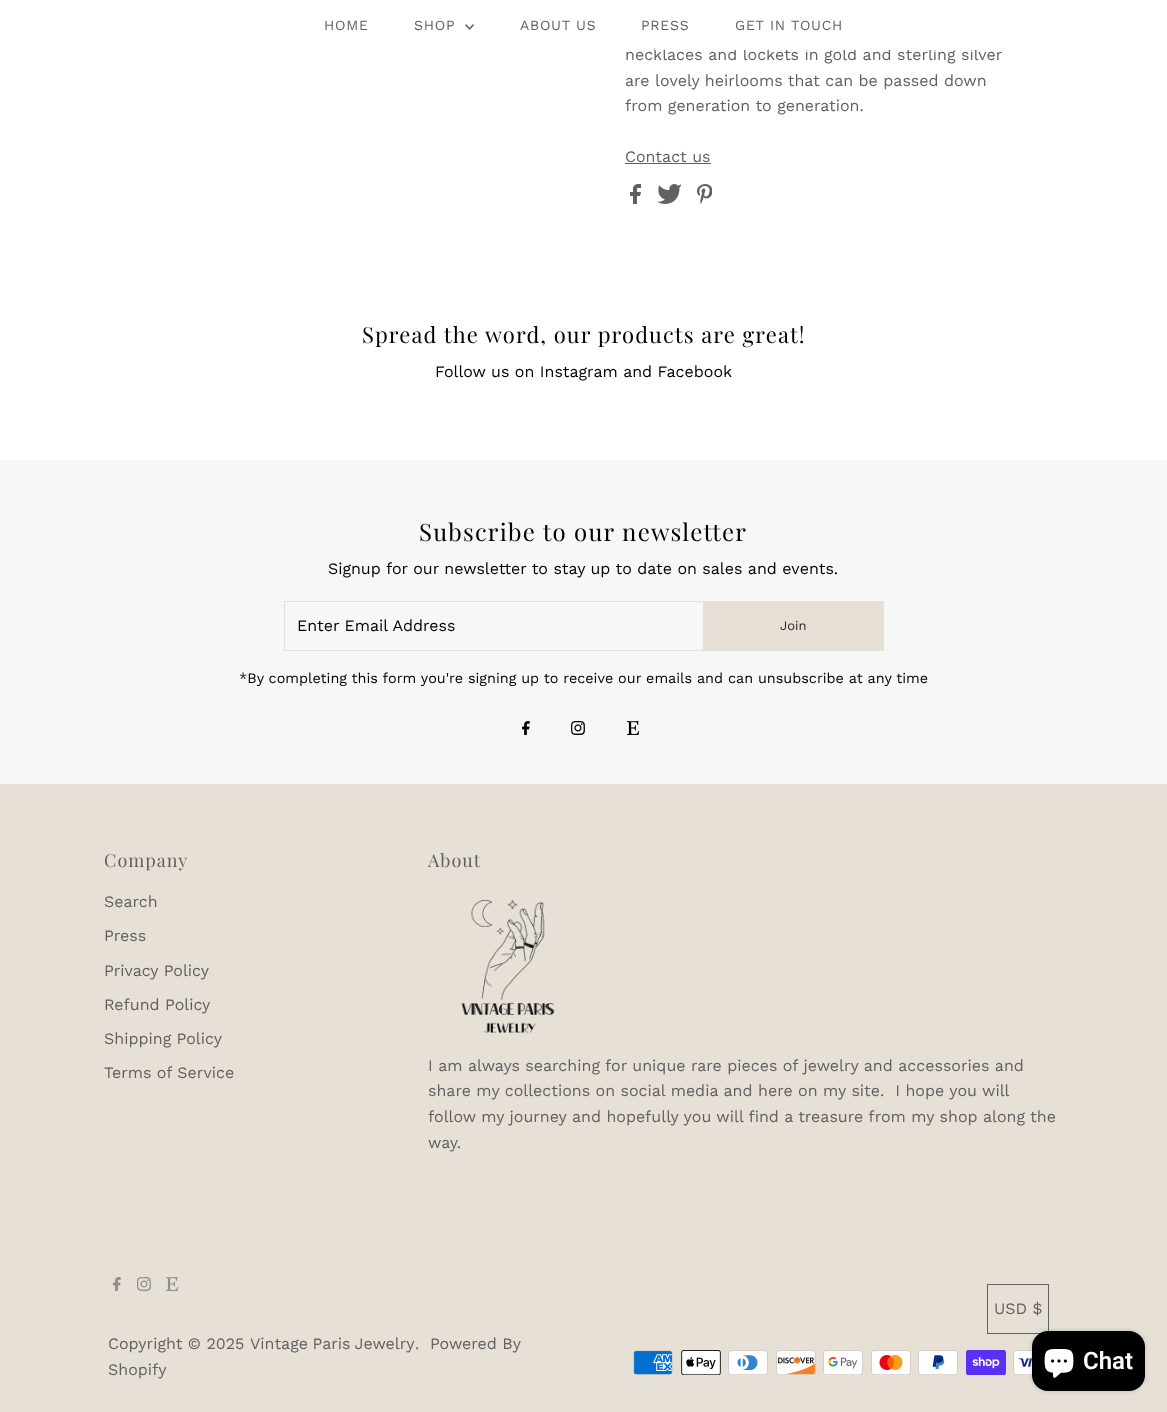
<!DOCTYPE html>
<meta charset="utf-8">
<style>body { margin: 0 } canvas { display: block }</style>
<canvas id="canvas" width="1167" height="1412"></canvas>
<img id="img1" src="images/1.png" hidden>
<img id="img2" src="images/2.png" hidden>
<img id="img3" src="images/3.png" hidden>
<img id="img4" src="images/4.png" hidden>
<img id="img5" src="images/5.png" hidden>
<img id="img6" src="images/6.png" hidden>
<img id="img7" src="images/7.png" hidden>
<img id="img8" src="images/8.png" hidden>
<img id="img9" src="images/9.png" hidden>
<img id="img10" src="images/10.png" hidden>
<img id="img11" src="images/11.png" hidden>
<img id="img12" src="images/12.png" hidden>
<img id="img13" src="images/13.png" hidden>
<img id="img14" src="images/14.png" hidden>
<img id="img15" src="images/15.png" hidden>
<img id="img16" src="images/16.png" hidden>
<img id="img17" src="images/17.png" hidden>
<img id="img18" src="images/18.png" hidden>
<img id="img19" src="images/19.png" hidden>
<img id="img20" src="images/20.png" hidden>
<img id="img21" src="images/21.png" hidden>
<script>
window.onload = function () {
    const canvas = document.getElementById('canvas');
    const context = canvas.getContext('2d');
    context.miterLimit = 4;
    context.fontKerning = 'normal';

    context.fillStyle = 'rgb(255, 255, 255)';
    context.fillRect(0, 0, 1167, 1412);
    context.drawImage(document.getElementById('img1'), 465, 24, 9, 6);
    context.fillStyle = 'rgb(97, 97, 97)';
    context.fillRect(625, 163, 86, 1);
    context.drawImage(document.getElementById('img2'), 630, 184, 11, 20);
    context.drawImage(document.getElementById('img3'), 657, 184, 24, 20);
    context.drawImage(document.getElementById('img4'), 697, 184, 15, 20);
    context.fillStyle = 'rgb(247, 247, 247)';
    context.fillRect(0, 460, 1167, 324);
    context.strokeStyle = 'rgb(230, 224, 215)';
    context.strokeRect(284.5, 601.5, 419, 49);
    context.fillStyle = 'rgb(230, 224, 215)';
    context.fillRect(704, 601, 180, 50);
    context.drawImage(document.getElementById('img5'), 522, 721, 8, 14);
    context.drawImage(document.getElementById('img6'), 571, 721, 14, 14);
    context.drawImage(document.getElementById('img7'), 627, 721, 12, 14);
    context.fillRect(0, 784, 1167, 628);
    context.drawImage(document.getElementById('img8'), 461, 900, 94, 134);
    context.strokeStyle = 'rgb(97, 97, 97)';
    context.strokeRect(987.5, 1284.5, 61, 49);
    context.drawImage(document.getElementById('img9'), 633, 1350, 40, 25);
    context.drawImage(document.getElementById('img10'), 681, 1350, 40, 25);
    context.drawImage(document.getElementById('img11'), 728, 1350, 40, 25);
    context.drawImage(document.getElementById('img12'), 776, 1350, 40, 25);
    context.drawImage(document.getElementById('img13'), 823, 1350, 40, 25);
    context.drawImage(document.getElementById('img14'), 871, 1350, 40, 25);
    context.drawImage(document.getElementById('img15'), 918, 1350, 40, 25);
    context.drawImage(document.getElementById('img16'), 966, 1350, 40, 25);
    context.drawImage(document.getElementById('img17'), 1013, 1350, 19, 25);
    context.drawImage(document.getElementById('img18'), 113, 1277, 8, 14);
    context.drawImage(document.getElementById('img19'), 137, 1277, 14, 14);
    context.drawImage(document.getElementById('img20'), 166, 1277, 12, 14);
    context.fillStyle = 'rgba(0, 0, 0, 0.15)';
    context.filter = 'blur(2.5px)';
    context.beginPath();
    context.roundRect(1032, 1331, 113, 60, 16);
    context.fill();
    context.filter = 'none';
    context.fillStyle = 'rgb(0, 0, 0)';
    context.beginPath();
    context.roundRect(1032, 1331, 113, 60, 16);
    context.fill();
    context.drawImage(document.getElementById('img21'), 1044, 1349, 30, 29);
    context.letterSpacing = '0.75px';
    context.font = '14px Work Sans';
    context.fillStyle = 'rgb(97, 97, 97)';
    context.fillText('HOME', 324, 30);
    context.fillText('SHOP', 414, 30);
    context.fillText('ABOUT US', 520, 30);
    context.fillText('PRESS', 641, 30);
    context.fillText('GET IN TOUCH', 735, 30);
    context.letterSpacing = '0px';
    context.font = '16px Work Sans';
    context.fillText('necklaces and lockets in gold and sterling silver', 625, 60);
    context.fillStyle = 'rgb(255, 255, 255)';
    context.fillRect(655, 48, 322, 2);
    context.fillStyle = 'rgb(97, 97, 97)';
    context.fillText('are lovely heirlooms that can be passed down', 625, 86);
    context.fillText('from generation to generation.', 625, 111);
    context.fillText('Contact us', 625, 162);
    context.letterSpacing = '1.1px';
    context.font = '22px Playfair Display';
    context.fillStyle = 'rgb(0, 0, 0)';
    context.fillText('Spread the word, our products are great!', 362, 343);
    context.letterSpacing = '0px';
    context.font = '16px Work Sans';
    context.fillText('Follow us on Instagram and Facebook', 435, 377);
    context.letterSpacing = '1.2px';
    context.font = '24px Playfair Display';
    context.fillText('Subscribe to our newsletter', 419, 541);
    context.letterSpacing = '0px';
    context.font = '16px Work Sans';
    context.fillText('Signup for our newsletter to stay up to date on sales and events.', 328, 574);
    context.fillText('Enter Email Address', 297, 631);
    context.font = '13px Work Sans';
    context.fillStyle = 'rgb(34, 34, 34)';
    context.fillText('Join', 780, 630);
    context.font = '14.4px Work Sans';
    context.fillStyle = 'rgb(0, 0, 0)';
    context.fillText('*By completing this form you\'re signing up to receive our emails and can unsubscribe at any time', 239, 683);
    context.letterSpacing = '1px';
    context.font = '18px Playfair Display';
    context.fillStyle = 'rgb(97, 97, 97)';
    context.fillText('Company', 104, 867);
    context.letterSpacing = '0px';
    context.font = '16px Work Sans';
    context.fillText('Search', 104, 907);
    context.fillText('Press', 104, 941);
    context.fillText('Privacy Policy', 104, 976);
    context.fillText('Refund Policy', 104, 1010);
    context.fillText('Shipping Policy', 104, 1044);
    context.fillText('Terms of Service', 104, 1078);
    context.letterSpacing = '1px';
    context.font = '18px Playfair Display';
    context.fillText('About', 428, 867);
    context.letterSpacing = '0px';
    context.font = '16px Work Sans';
    context.fillText('I am always searching for unique rare pieces of jewelry and accessories and', 428, 1071);
    context.fillText('share my collections on social media and here on my site.  I hope you will', 428, 1096);
    context.fillText('follow my journey and hopefully you will find a treasure from my shop along the', 428, 1122);
    context.fillText('way.', 428, 1148);
    context.fillText('USD $', 994, 1314);
    context.fillText('Copyright © 2025', 108, 1349);
    context.wordSpacing = '-1px';
    context.fillText('Vintage Paris Jewelry', 250, 1349);
    context.wordSpacing = '0px';
    context.fillText('.', 415, 1349);
    context.fillText('Powered By', 430, 1349);
    context.fillText('Shopify', 108, 1375);
    context.font = '600 24px Roboto';
    context.fillStyle = 'rgb(255, 255, 255)';
    context.fillText('Chat', 1083, 1369);
};
</script>
